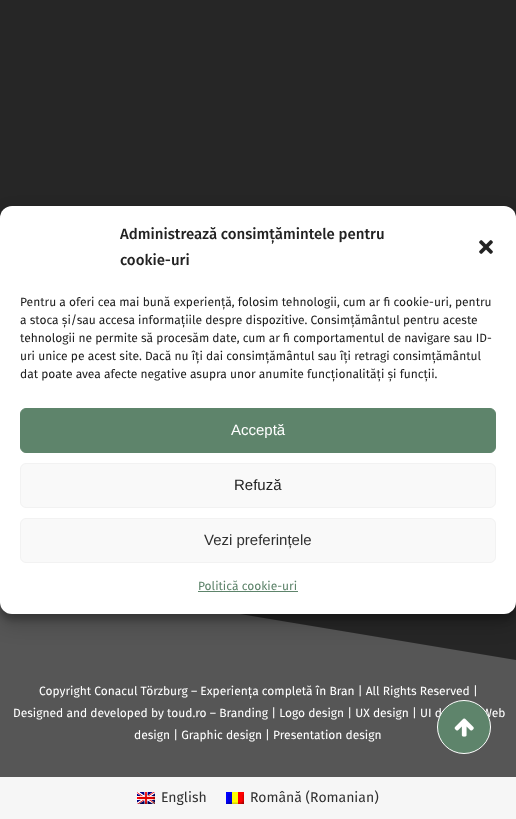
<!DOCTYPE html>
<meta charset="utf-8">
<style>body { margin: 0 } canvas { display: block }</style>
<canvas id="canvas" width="516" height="819"></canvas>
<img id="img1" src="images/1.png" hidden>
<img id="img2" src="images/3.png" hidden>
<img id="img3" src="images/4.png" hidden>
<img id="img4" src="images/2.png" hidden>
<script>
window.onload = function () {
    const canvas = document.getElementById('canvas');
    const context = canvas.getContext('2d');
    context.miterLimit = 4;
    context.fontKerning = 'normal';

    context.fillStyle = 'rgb(246, 246, 246)';
    context.fillRect(0, 0, 516, 819);
    context.fillStyle = 'rgb(38, 38, 38)';
    context.fillRect(0, 0, 516, 660);
    context.fillStyle = 'rgb(86, 86, 86)';
    context.beginPath();
    context.moveTo(0, 574);
    context.lineTo(0, 660);
    context.lineTo(516, 660);
    context.closePath();
    context.fill();
    context.fillStyle = 'rgba(0, 0, 0, 0.23)';
    context.filter = 'blur(3px)';
    context.beginPath();
    context.roundRect(0, 212, 516, 408, 12);
    context.fill();
    context.filter = 'none';
    context.fillStyle = 'rgba(0, 0, 0, 0.19)';
    context.filter = 'blur(10px)';
    context.beginPath();
    context.roundRect(0, 216, 516, 408, 12);
    context.fill();
    context.filter = 'none';
    context.fillStyle = 'rgb(255, 255, 255)';
    context.beginPath();
    context.roundRect(0, 206, 516, 408, 12);
    context.fill();
    context.drawImage(document.getElementById('img1'), 479, 240, 14, 14);
    context.fillStyle = 'rgb(94, 132, 107)';
    context.beginPath();
    context.roundRect(20.5, 408.5, 475, 44, 5.5);
    context.fill();
    context.strokeStyle = 'rgb(94, 132, 107)';
    context.stroke();
    context.fillStyle = 'rgb(249, 249, 249)';
    context.beginPath();
    context.roundRect(20.5, 463.5, 475, 44, 5.5);
    context.fill();
    context.strokeStyle = 'rgb(242, 242, 242)';
    context.stroke();
    context.beginPath();
    context.roundRect(20.5, 518.5, 475, 44, 5.5);
    context.fill();
    context.stroke();
    context.fillStyle = 'rgb(94, 132, 107)';
    context.fillRect(198, 591, 100, 1);
    context.fillStyle = 'rgb(86, 86, 86)';
    context.fillRect(0, 660, 516, 117);
    context.drawImage(document.getElementById('img2'), 137, 792, 18, 12);
    context.drawImage(document.getElementById('img3'), 226, 792, 18, 12);
    context.font = '500 15px Fira Sans';
    context.fillStyle = 'rgb(34, 34, 34)';
    context.fillText('Administrează consimțămintele pentru', 120, 239);
    context.fillText('cookie-uri', 120, 265);
    context.font = '12px Fira Sans';
    context.fillText('Pentru a oferi cea mai bună experiență, folosim tehnologii, cum ar fi cookie-uri, pentru', 20, 306);
    context.fillText('a stoca și/sau accesa informațiile despre dispozitive. Consimțământul pentru aceste', 20, 324);
    context.fillText('tehnologii ne permite să procesăm date, cum ar fi comportamentul de navigare sau ID-', 20, 342);
    context.fillText('uri unice pe acest site. Dacă nu îți dai consimțământul sau îți retragi consimțământul', 20, 360);
    context.fillText('dat poate avea afecte negative asupra unor anumite funcționalități și funcții.', 20, 378);
    context.font = '15px Liberation Sans';
    context.fillStyle = 'rgb(255, 255, 255)';
    context.fillText('Acceptă', 231, 435);
    context.fillStyle = 'rgb(34, 34, 34)';
    context.fillText('Refuză', 234, 490);
    context.fillStyle = 'rgb(48, 48, 48)';
    context.fillText('Vezi preferințele', 204, 545);
    context.font = '12px Fira Sans';
    context.fillStyle = 'rgb(94, 132, 107)';
    context.fillText('Politică cookie-uri', 198, 590);
    context.fillStyle = 'rgb(255, 255, 255)';
    context.fillText('Copyright Conacul Törzburg – Experiența completă în Bran | All Rights Reserved |', 39, 695);
    context.fillText('Designed and developed by toud.ro – Branding | Logo design | UX design | UI d', 13, 717);
    context.fillText('Web', 482, 717);
    context.fillText('design | Graphic design | Presentation design', 134, 739);
    context.fillStyle = 'rgb(94, 132, 107)';
    context.beginPath();
    context.arc(464, 727, 26.5, 0, 2 * Math.PI);
    context.fill();
    context.strokeStyle = 'rgb(255, 255, 255)';
    context.stroke();
    context.drawImage(document.getElementById('img4'), 454, 718, 20, 19);
    context.font = '14px Fira Sans';
    context.fillStyle = 'rgb(48, 48, 48)';
    context.fillText('English', 161, 802);
    context.fillText('Română (Romanian)', 250, 802);
};
</script>
